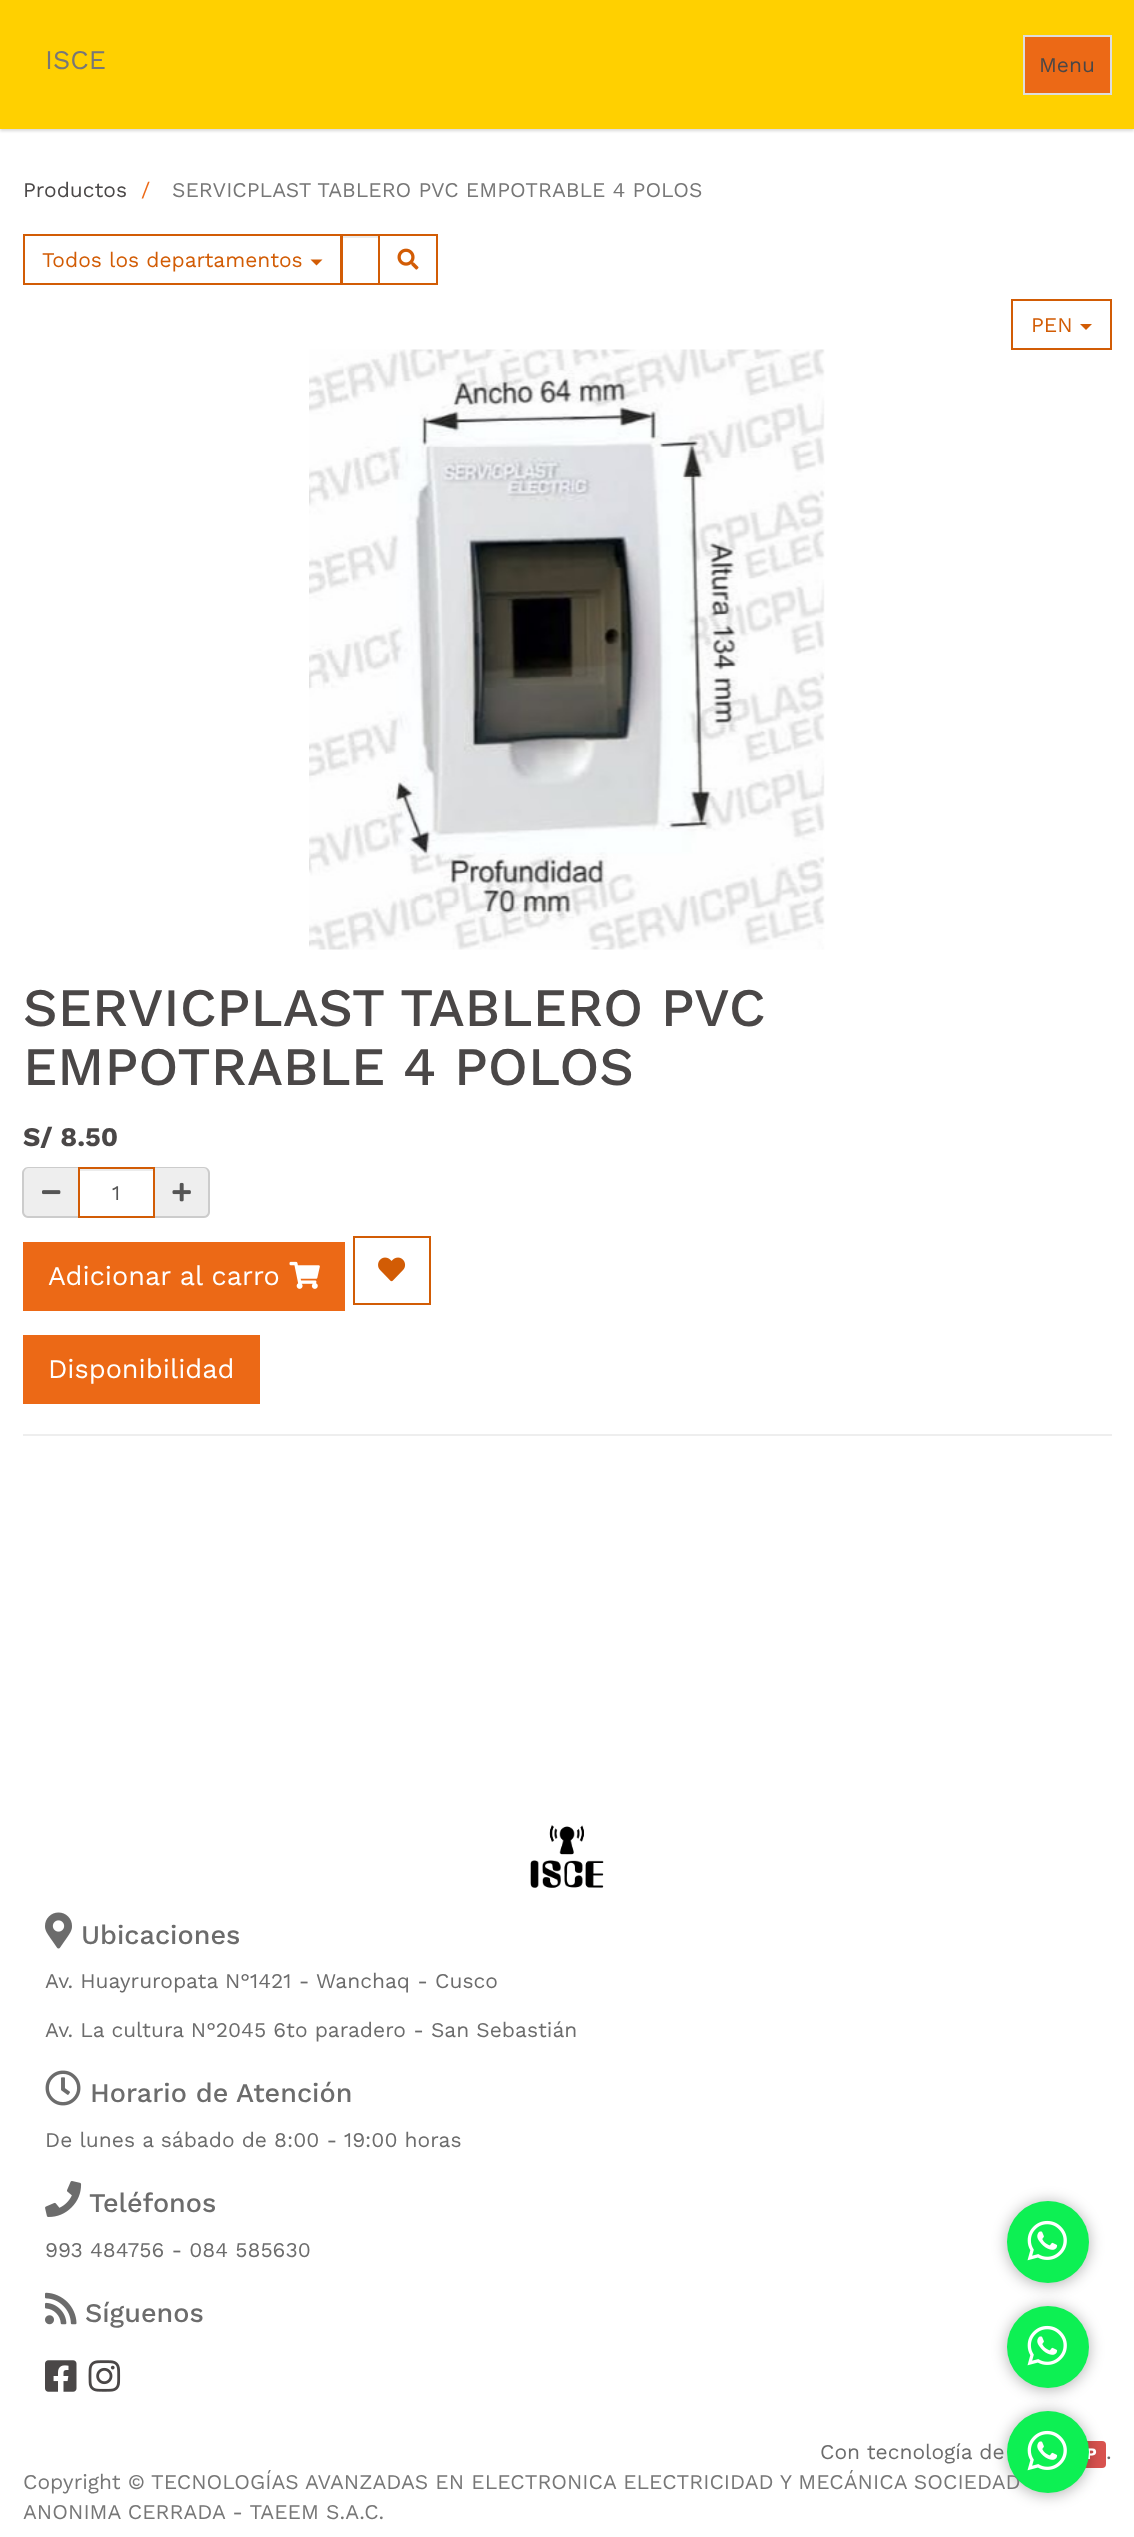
<!DOCTYPE html>
<meta charset="utf-8">
<style>body { margin: 0 } canvas { display: block }</style>
<canvas id="canvas" width="1134" height="2537"></canvas>
<img id="img1" src="images/2.png" hidden>
<img id="img2" src="images/3.png" hidden>
<img id="img3" src="images/4.png" hidden>
<img id="img4" src="images/5.png" hidden>
<img id="img5" src="images/6.png" hidden>
<img id="img6" src="images/7.png" hidden>
<img id="img7" src="images/8.png" hidden>
<img id="img8" src="images/9.png" hidden>
<img id="img9" src="images/10.png" hidden>
<img id="img10" src="images/11.png" hidden>
<img id="img11" src="images/12.png" hidden>
<img id="img12" src="images/13.png" hidden>
<img id="img13" src="images/14.png" hidden>
<img id="img14" src="images/1.png" hidden>
<script>
window.onload = function () {
    const canvas = document.getElementById('canvas');
    const context = canvas.getContext('2d');
    context.miterLimit = 4;
    context.fontKerning = 'normal';

    context.fillStyle = 'rgb(255, 255, 255)';
    context.fillRect(0, 0, 1134, 2537);
    context.fillStyle = 'rgba(0, 0, 0, 0.15)';
    context.filter = 'blur(1.5px)';
    context.beginPath();
    context.rect(0, 2, 1134, 129);
    context.fill();
    context.filter = 'none';
    context.fillStyle = 'rgb(255, 208, 0)';
    context.fillRect(0, 0, 1134, 129);
    context.fillStyle = 'rgb(236, 105, 22)';
    context.beginPath();
    context.rect(1024, 36, 87, 58);
    context.fill();
    context.strokeStyle = 'rgb(221, 221, 221)';
    context.lineWidth = 2;
    context.stroke();
    context.fillStyle = 'rgb(217, 83, 79)';
    context.beginPath();
    context.roundRect(1013, 2441, 93, 27, 4);
    context.fill();
    context.fillStyle = 'rgba(0, 0, 0, 0.3)';
    context.filter = 'blur(7.5px)';
    context.beginPath();
    context.roundRect(1007, 2412, 82, 83, 41);
    context.fill();
    context.filter = 'none';
    context.strokeStyle = 'rgb(210, 92, 5)';
    context.strokeRect(24, 235, 317, 49);
    context.fillStyle = 'rgb(210, 92, 5)';
    context.beginPath();
    context.moveTo(310.5, 259.5);
    context.lineTo(322.5, 259.5);
    context.lineTo(316.5, 265.5);
    context.closePath();
    context.fill();
    context.fillStyle = 'rgb(236, 236, 236)';
    context.fillRect(342, 236, 36, 2);
    context.strokeRect(342, 235, 37, 49);
    context.strokeRect(379, 235, 58, 49);
    context.drawImage(document.getElementById('img1'), 397, 248, 22, 22);
    context.strokeRect(1012, 300, 99, 49);
    context.fillStyle = 'rgb(210, 92, 5)';
    context.beginPath();
    context.moveTo(1080, 324);
    context.lineTo(1092, 324);
    context.lineTo(1086, 330);
    context.closePath();
    context.fill();
    context.drawImage(document.getElementById('img2'), 309, 349, 516, 601);
    context.fillStyle = 'rgb(238, 238, 238)';
    context.beginPath();
    context.roundRect(23, 1167, 55, 51, [6, 0, 0, 6]);
    context.fill();
    context.fillStyle = 'rgb(204, 204, 204)';
    context.beginPath();
    context.moveTo(28, 1167);
    context.lineTo(78, 1167);
    context.lineTo(78, 1218);
    context.lineTo(28, 1218);
    context.bezierCurveTo(25, 1218, 22, 1215, 22, 1212);
    context.lineTo(22, 1173);
    context.bezierCurveTo(22, 1170, 25, 1167, 28, 1167);
    context.closePath();
    context.moveTo(28, 1168);
    context.lineTo(78, 1168);
    context.lineTo(78, 1216);
    context.lineTo(28, 1216);
    context.bezierCurveTo(26, 1216, 24, 1214, 24, 1212);
    context.lineTo(24, 1173);
    context.bezierCurveTo(24, 1171, 26, 1168, 28, 1168);
    context.closePath();
    context.fill('evenodd');
    context.drawImage(document.getElementById('img3'), 42, 1190, 19, 5);
    context.fillStyle = 'rgb(236, 236, 236)';
    context.fillRect(80, 1169, 73, 2);
    context.fillStyle = 'rgb(238, 238, 238)';
    context.beginPath();
    context.roundRect(155, 1167, 55, 51, [0, 6, 6, 0]);
    context.fill();
    context.fillStyle = 'rgb(204, 204, 204)';
    context.beginPath();
    context.moveTo(154, 1167);
    context.lineTo(204, 1167);
    context.bezierCurveTo(207, 1167, 210, 1170, 210, 1173);
    context.lineTo(210, 1212);
    context.bezierCurveTo(210, 1215, 207, 1218, 204, 1218);
    context.lineTo(154, 1218);
    context.closePath();
    context.moveTo(154, 1168);
    context.lineTo(204, 1168);
    context.bezierCurveTo(206, 1168, 208, 1171, 208, 1173);
    context.lineTo(208, 1212);
    context.bezierCurveTo(208, 1214, 206, 1216, 204, 1216);
    context.lineTo(154, 1216);
    context.closePath();
    context.fill('evenodd');
    context.strokeRect(79, 1168, 75, 49);
    context.drawImage(document.getElementById('img4'), 172, 1182, 19, 20);
    context.fillStyle = 'rgb(236, 105, 22)';
    context.fillRect(23, 1242, 322, 69);
    context.drawImage(document.getElementById('img5'), 289, 1261, 31, 28);
    context.strokeRect(354, 1237, 76, 67);
    context.drawImage(document.getElementById('img6'), 378, 1257, 28, 25);
    context.fillRect(23, 1335, 237, 69);
    context.fillStyle = 'rgb(238, 238, 238)';
    context.fillRect(23, 1434, 1089, 2);
    context.drawImage(document.getElementById('img7'), 530, 1825, 74, 63);
    context.drawImage(document.getElementById('img8'), 45, 1912, 27, 37);
    context.drawImage(document.getElementById('img9'), 45, 2070, 36, 36);
    context.drawImage(document.getElementById('img10'), 45, 2181, 37, 36);
    context.drawImage(document.getElementById('img11'), 45, 2292, 32, 33);
    context.drawImage(document.getElementById('img12'), 45, 2360, 32, 32);
    context.drawImage(document.getElementById('img13'), 88, 2360, 33, 32);
    context.font = '27px Work Sans';
    context.fillStyle = 'rgb(119, 119, 119)';
    context.fillText('ISCE', 45, 69);
    context.font = '21px Work Sans';
    context.fillStyle = 'rgb(74, 71, 71)';
    context.fillText('Menu', 1039, 72);
    context.fillText('Productos', 23, 197);
    context.fillStyle = 'rgb(236, 105, 22)';
    context.fillText('/', 141, 197);
    context.fillStyle = 'rgb(119, 119, 119)';
    context.fillText('SERVICPLAST TABLERO PVC EMPOTRABLE 4 POLOS', 172, 197);
    context.fillStyle = 'rgb(210, 92, 5)';
    context.fillText('Todos los departamentos', 42, 267);
    context.fillText('PEN', 1031, 332);
    context.font = '500 54px Work Sans';
    context.fillStyle = 'rgb(74, 71, 71)';
    context.fillText('SERVICPLAST TABLERO PVC', 23, 1026);
    context.fillText('EMPOTRABLE 4 POLOS', 23, 1085);
    context.font = 'bold 27px Work Sans';
    context.fillText('S/ 8.50', 23, 1146);
    context.font = '21px Work Sans';
    context.fillStyle = 'rgb(85, 85, 85)';
    context.fillText('1', 112, 1200);
    context.font = '27px Work Sans';
    context.fillStyle = 'rgb(255, 255, 255)';
    context.fillText('Adicionar al carro', 48, 1285);
    context.fillText('Disponibilidad', 48, 1378);
    context.font = '500 27px Work Sans';
    context.fillStyle = 'rgb(108, 108, 108)';
    context.fillText('Ubicaciones', 81, 1944);
    context.font = '21px Work Sans';
    context.fillText('Av. Huayruropata N°1421 - Wanchaq - Cusco', 45, 1988);
    context.fillText('Av. La cultura N°2045 6to paradero - San Sebastián', 45, 2037);
    context.font = '500 27px Work Sans';
    context.fillText('Horario de Atención', 90, 2102);
    context.font = '21px Work Sans';
    context.fillText('De lunes a sábado de 8:00 - 19:00 horas', 45, 2147);
    context.font = '500 27px Work Sans';
    context.fillText('Teléfonos', 89, 2212);
    context.font = '21px Work Sans';
    context.fillText('993 484756 - 084 585630', 45, 2257);
    context.font = '500 27px Work Sans';
    context.fillText('Síguenos', 85, 2322);
    context.font = '21px Work Sans';
    context.fillText('Con tecnología de', 820, 2459);
    context.font = 'bold 16px Work Sans';
    context.fillStyle = 'rgb(255, 255, 255)';
    context.fillText('P', 1086, 2459);
    context.font = '21px Work Sans';
    context.fillStyle = 'rgb(108, 108, 108)';
    context.fillText('.', 1106, 2459);
    context.fillStyle = 'rgb(119, 119, 119)';
    context.fillText('Copyright ©', 23, 2489);
    context.fillText('TECNOLOGÍAS AVANZADAS EN ELECTRONICA ELECTRICIDAD Y MECÁNICA SOCIEDAD', 151, 2489);
    context.fillStyle = 'rgb(13, 240, 83)';
    context.beginPath();
    context.arc(1048, 2452, 41, 0, 2 * Math.PI);
    context.fill();
    context.fillStyle = 'rgba(0, 0, 0, 0.3)';
    context.filter = 'blur(7.5px)';
    context.beginPath();
    context.roundRect(1007, 2307, 82, 83, 41);
    context.fill();
    context.filter = 'none';
    context.fillStyle = 'rgb(13, 240, 83)';
    context.beginPath();
    context.arc(1048, 2347, 41, 0, 2 * Math.PI);
    context.fill();
    context.fillStyle = 'rgba(0, 0, 0, 0.3)';
    context.filter = 'blur(7.5px)';
    context.beginPath();
    context.roundRect(1007, 2202, 82, 83, 41);
    context.fill();
    context.filter = 'none';
    context.fillStyle = 'rgb(13, 240, 83)';
    context.beginPath();
    context.arc(1048, 2242, 41, 0, 2 * Math.PI);
    context.fill();
    context.drawImage(document.getElementById('img14'), 1027, 2220, 40, 41);
    context.drawImage(document.getElementById('img14'), 1027, 2325, 40, 41);
    context.drawImage(document.getElementById('img14'), 1027, 2430, 40, 41);
    context.fillStyle = 'rgb(119, 119, 119)';
    context.fillText('ANONIMA CERRADA - TAEEM S.A.C.', 23, 2519);
};
</script>
